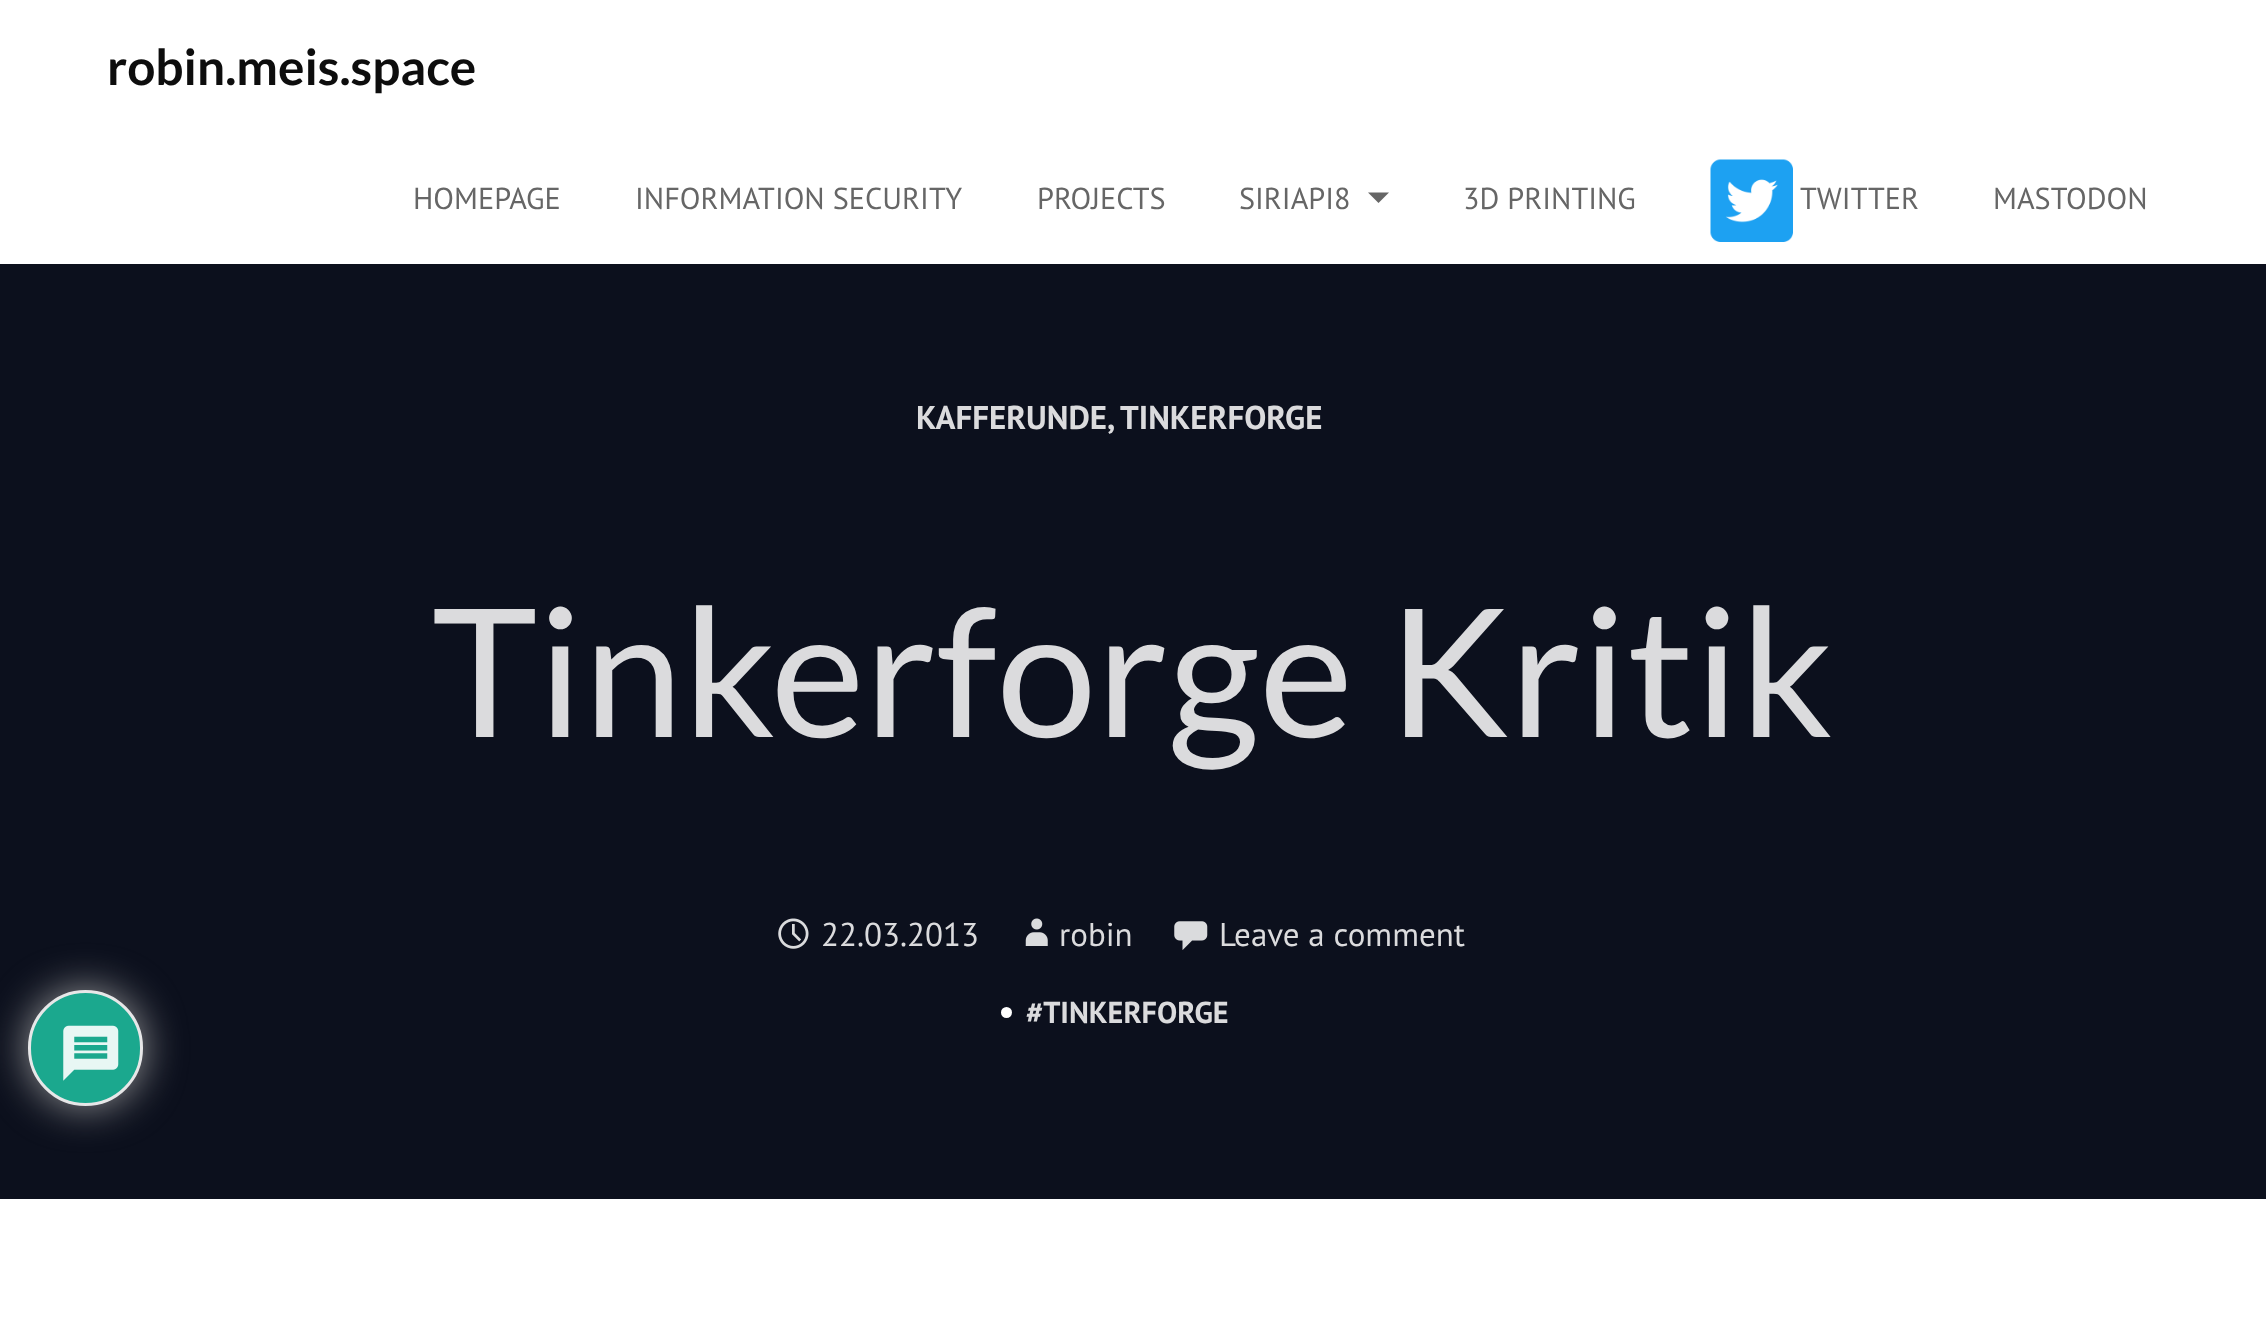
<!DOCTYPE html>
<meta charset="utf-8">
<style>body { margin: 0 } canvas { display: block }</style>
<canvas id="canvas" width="2266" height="1325"></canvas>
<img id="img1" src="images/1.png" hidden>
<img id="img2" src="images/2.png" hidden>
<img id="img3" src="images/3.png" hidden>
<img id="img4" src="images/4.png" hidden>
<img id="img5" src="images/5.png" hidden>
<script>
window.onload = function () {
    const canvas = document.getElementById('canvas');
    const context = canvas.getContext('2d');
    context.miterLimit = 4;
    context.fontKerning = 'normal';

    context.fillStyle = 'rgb(255, 255, 255)';
    context.fillRect(0, 0, 2266, 1325);
    context.fillStyle = 'rgb(12, 16, 29)';
    context.fillRect(0, 264, 2266, 935);
    context.fillStyle = 'rgb(154, 155, 156)';
    context.filter = 'blur(20.5px)';
    context.beginPath();
    context.roundRect(28, 990, 115, 116, 57.5);
    context.fill();
    context.filter = 'none';
    context.fillStyle = 'rgb(27, 168, 142)';
    context.beginPath();
    context.roundRect(29.5, 991.5, 112, 113, 56);
    context.fill();
    context.strokeStyle = 'rgb(231, 231, 232)';
    context.lineWidth = 3;
    context.stroke();
    context.drawImage(document.getElementById('img1'), 63, 1025, 56, 56);
    context.fillStyle = 'rgb(102, 102, 102)';
    context.beginPath();
    context.moveTo(1368, 192.5);
    context.lineTo(1378.5, 203);
    context.lineTo(1389, 192.5);
    context.closePath();
    context.fill();
    context.drawImage(document.getElementById('img2'), 1710, 159, 83, 83);
    context.drawImage(document.getElementById('img3'), 778, 918, 31, 31);
    context.drawImage(document.getElementById('img4'), 1025, 918, 23, 28);
    context.drawImage(document.getElementById('img5'), 1174, 921, 34, 29);
    context.fillStyle = 'rgb(255, 255, 255)';
    context.beginPath();
    context.arc(1006.5, 1012.5, 5.5, 0, 2 * Math.PI);
    context.fill();
    context.font = 'bold 49.5px Lato';
    context.fillStyle = 'rgb(13, 13, 13)';
    context.fillText('robin.meis.space', 107, 85);
    context.font = '30.25px PT Sans';
    context.fillStyle = 'rgb(102, 102, 102)';
    context.fillText('HOMEPAGE', 413, 209);
    context.fillText('INFORMATION SECURITY', 635, 209);
    context.fillText('PROJECTS', 1037, 209);
    context.fillText('SIRIAPI8', 1239, 209);
    context.fillText('3D PRINTING', 1463, 209);
    context.fillText('TWITTER', 1800, 209);
    context.fillText('MASTODON', 1993, 209);
    context.font = 'bold 33px PT Sans';
    context.fillStyle = 'rgb(219, 219, 221)';
    context.fillText('KAFFERUNDE,', 916, 429);
    context.fillText('TINKERFORGE', 1120, 429);
    context.font = '178.75px Lato';
    context.fillText('Tinkerforge Kritik', 432, 737);
    context.font = '33px PT Sans';
    context.fillText('22.03.2013', 821, 946);
    context.fillText('robin', 1059, 946);
    context.fillText('Leave a comment', 1219, 946);
    context.font = 'bold 30.25px PT Sans';
    context.fillText('#TINKERFORGE', 1026, 1023);
};
</script>
